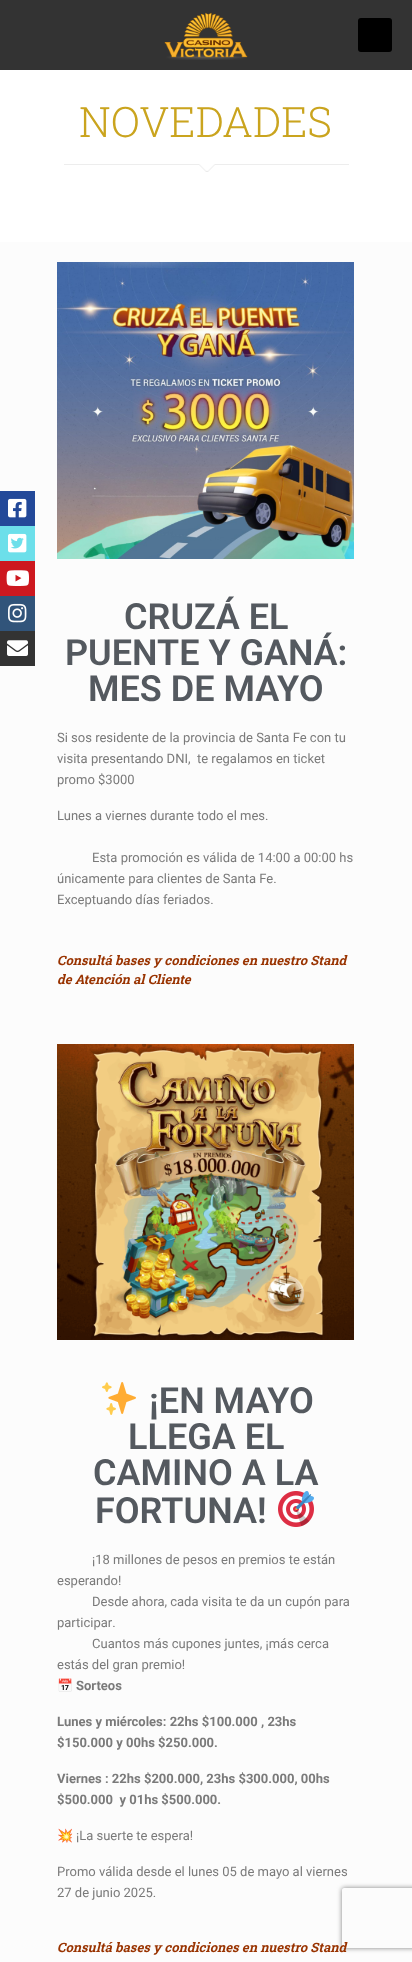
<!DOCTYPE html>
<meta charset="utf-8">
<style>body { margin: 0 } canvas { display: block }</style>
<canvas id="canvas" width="412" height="1962"></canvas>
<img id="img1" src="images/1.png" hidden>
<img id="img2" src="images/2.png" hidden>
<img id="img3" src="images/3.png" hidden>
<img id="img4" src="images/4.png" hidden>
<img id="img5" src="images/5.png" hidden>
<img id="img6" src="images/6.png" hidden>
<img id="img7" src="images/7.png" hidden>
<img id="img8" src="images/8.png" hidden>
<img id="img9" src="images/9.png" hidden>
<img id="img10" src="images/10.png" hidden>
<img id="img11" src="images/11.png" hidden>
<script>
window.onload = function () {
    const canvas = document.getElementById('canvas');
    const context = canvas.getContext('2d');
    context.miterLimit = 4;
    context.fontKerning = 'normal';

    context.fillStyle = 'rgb(252, 252, 252)';
    context.fillRect(0, 0, 412, 1962);
    context.fillStyle = 'rgb(35, 73, 153)';
    context.fillRect(0, 491, 35, 35);
    context.drawImage(document.getElementById('img1'), 8, 498, 19, 20);
    context.fillStyle = 'rgb(108, 223, 234)';
    context.fillRect(0, 526, 35, 35);
    context.drawImage(document.getElementById('img2'), 8, 533, 19, 20);
    context.fillStyle = 'rgb(205, 24, 31)';
    context.fillRect(0, 561, 35, 35);
    context.drawImage(document.getElementById('img3'), 6, 570, 23, 16);
    context.fillStyle = 'rgb(49, 84, 122)';
    context.fillRect(0, 596, 35, 35);
    context.drawImage(document.getElementById('img4'), 8, 603, 19, 20);
    context.fillStyle = 'rgb(51, 51, 51)';
    context.fillRect(0, 631, 35, 35);
    context.drawImage(document.getElementById('img5'), 7, 640, 21, 16);
    context.fillRect(0, 0, 412, 70);
    context.drawImage(document.getElementById('img6'), 164, 12, 84, 48);
    context.fillStyle = 'rgb(0, 0, 0)';
    context.beginPath();
    context.roundRect(358, 18, 34, 34, 3);
    context.fill();
    context.fillStyle = 'rgb(255, 255, 255)';
    context.fillRect(0, 70, 412, 172);
    context.drawImage(document.getElementById('img7'), 64, 164, 285, 8);
    context.drawImage(document.getElementById('img8'), 57, 262, 297, 297);
    context.drawImage(document.getElementById('img9'), 57, 1044, 297, 296);
    context.drawImage(document.getElementById('img10'), 102, 1382, 34, 33);
    context.drawImage(document.getElementById('img11'), 278, 1491, 36, 36);
    context.save();
    context.beginPath();
    context.moveTo(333, 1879);
    context.lineTo(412, 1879);
    context.lineTo(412, 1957);
    context.lineTo(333, 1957);
    context.closePath();
    context.moveTo(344, 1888);
    context.lineTo(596, 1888);
    context.bezierCurveTo(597, 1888, 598, 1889, 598, 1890);
    context.lineTo(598, 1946);
    context.bezierCurveTo(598, 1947, 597, 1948, 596, 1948);
    context.lineTo(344, 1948);
    context.bezierCurveTo(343, 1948, 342, 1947, 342, 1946);
    context.lineTo(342, 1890);
    context.bezierCurveTo(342, 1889, 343, 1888, 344, 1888);
    context.closePath();
    context.clip('evenodd');
    context.fillStyle = 'rgb(128, 128, 128)';
    context.filter = 'blur(2.5px)';
    context.beginPath();
    context.roundRect(342, 1888, 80, 60, 2);
    context.fill();
    context.filter = 'none';
    context.restore();
    context.font = '300 42px Roboto Slab';
    context.fillStyle = 'rgb(202, 164, 30)';
    context.fillText('NOVEDADES', 79, 137);
    context.font = '600 36px Roboto';
    context.fillStyle = 'rgb(84, 89, 95)';
    context.fillText('CRUZÁ EL', 124, 629);
    context.fillText('PUENTE Y GANÁ:', 65, 665);
    context.fillText('MES DE MAYO', 88, 701);
    context.font = '13px Roboto';
    context.fillStyle = 'rgb(122, 122, 122)';
    context.fillText('Si sos residente de la provincia de Santa Fe con tu', 57, 742);
    context.fillText('visita presentando DNI,', 57, 763);
    context.fillText('te regalamos en ticket', 197, 763);
    context.fillText('promo $3000', 57, 784);
    context.fillText('Lunes a viernes durante todo el mes.', 57, 820);
    context.fillText('Esta promoción es válida de 14:00 a 00:00 hs', 92, 862);
    context.fillText('únicamente para clientes de Santa Fe.', 57, 883);
    context.fillText('Exceptuando días feriados.', 57, 904);
    context.font = 'italic bold 13px Roboto Slab';
    context.fillStyle = 'rgb(153, 51, 0)';
    context.fillText('Consultá bases y condiciones en nuestro Stand', 57, 965);
    context.fillText('de Atención al Cliente', 57, 984);
    context.font = '600 36px Roboto';
    context.fillStyle = 'rgb(84, 89, 95)';
    context.fillText('¡EN MAYO', 149, 1413);
    context.fillText('LLEGA EL', 128, 1449);
    context.fillText('CAMINO A LA', 93, 1485);
    context.fillText('FORTUNA!', 95, 1523);
    context.font = '13px Roboto';
    context.fillStyle = 'rgb(122, 122, 122)';
    context.fillText('¡18 millones de pesos en premios te están', 92, 1564);
    context.fillText('esperando!', 57, 1585);
    context.fillText('Desde ahora, cada visita te da un cupón para', 92, 1606);
    context.fillText('participar.', 57, 1627);
    context.fillText('Cuantos más cupones juntes, ¡más cerca', 92, 1648);
    context.fillText('estás del gran premio!', 57, 1669);
    context.font = '13px Noto Color Emoji';
    context.fillText('📅', 57, 1690);
    context.font = 'bold 13px Roboto';
    context.fillText('Sorteos', 76, 1690);
    context.fillText('Lunes y miércoles: 22hs $100.000 , 23hs', 57, 1726);
    context.fillText('$150.000 y 00hs $250.000.', 57, 1747);
    context.fillText('Viernes : 22hs $200.000, 23hs $300.000, 00hs', 57, 1783);
    context.fillText('$500.000  y 01hs $500.000.', 57, 1804);
    context.font = '13px Noto Color Emoji';
    context.fillText('💥', 57, 1840);
    context.font = '13px Roboto';
    context.fillText('¡La suerte te espera!', 76, 1840);
    context.fillText('Promo válida desde el lunes 05 de mayo al viernes', 57, 1876);
    context.fillText('27 de junio 2025.', 57, 1897);
    context.font = 'italic bold 13px Roboto Slab';
    context.fillStyle = 'rgb(153, 51, 0)';
    context.fillText('Consultá bases y condiciones en nuestro Stand', 57, 1952);
};
</script>
